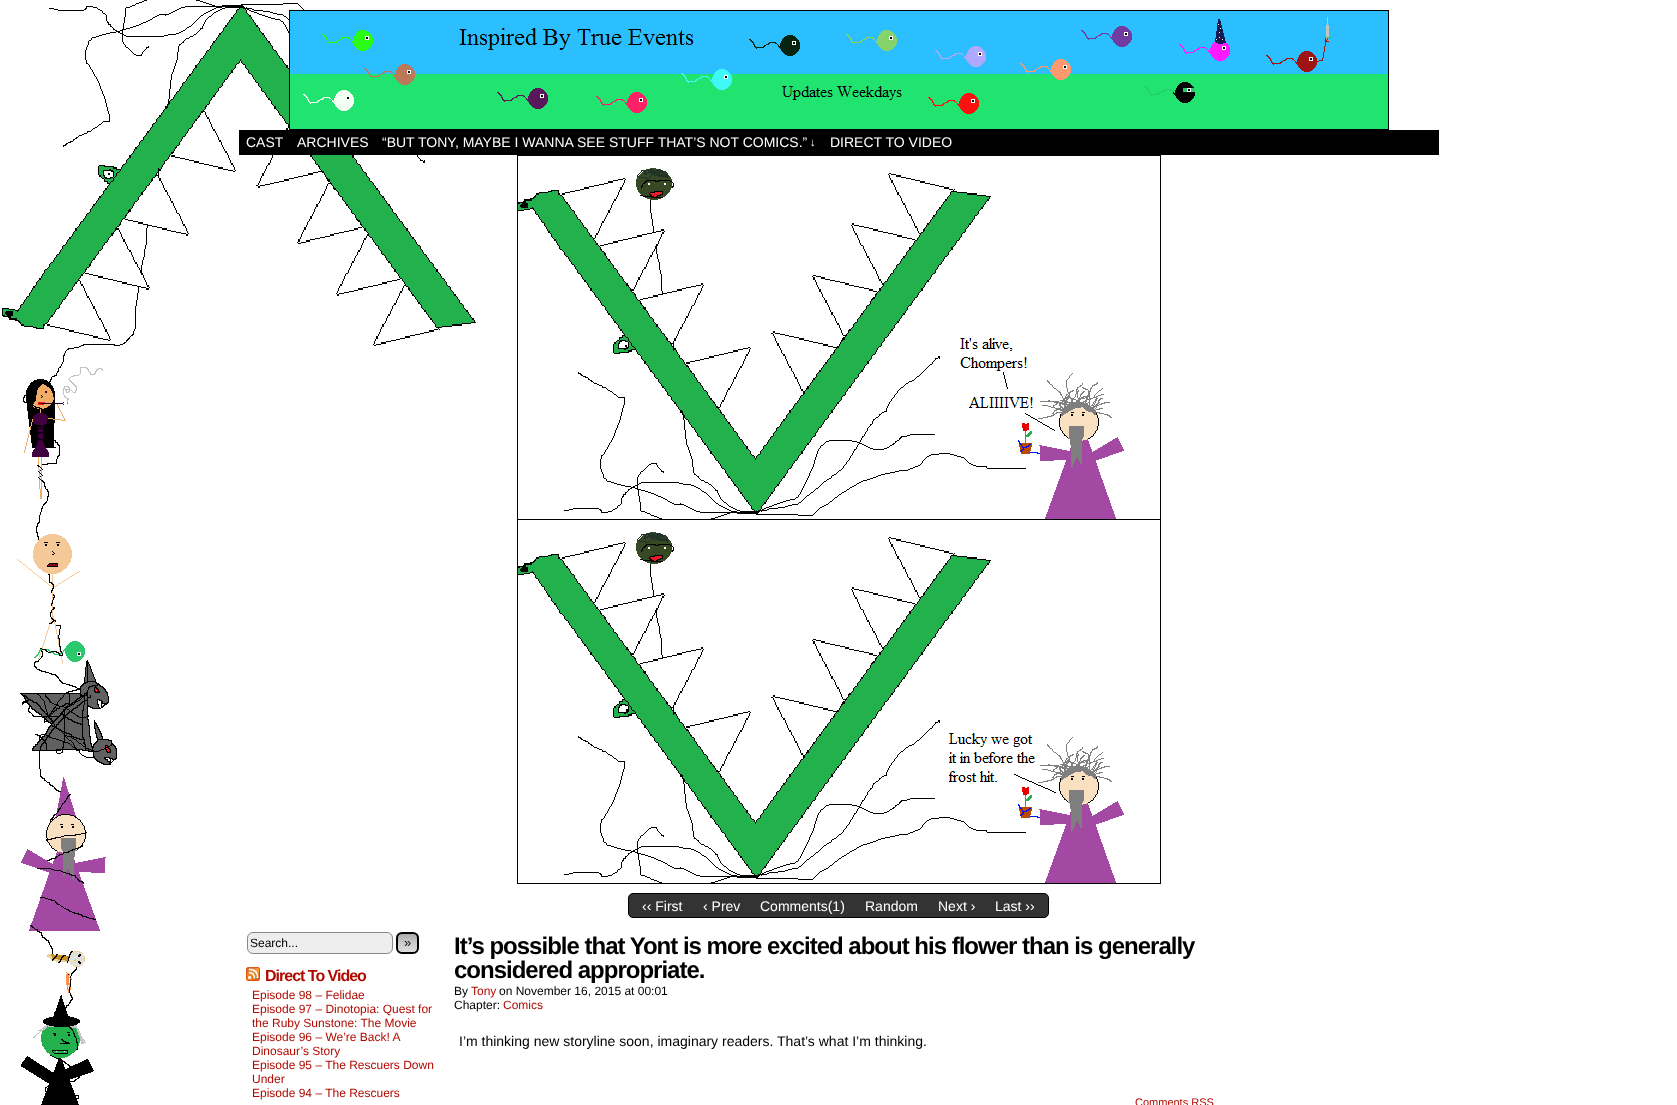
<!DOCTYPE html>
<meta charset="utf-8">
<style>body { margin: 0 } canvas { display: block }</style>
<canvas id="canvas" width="1677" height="1105"></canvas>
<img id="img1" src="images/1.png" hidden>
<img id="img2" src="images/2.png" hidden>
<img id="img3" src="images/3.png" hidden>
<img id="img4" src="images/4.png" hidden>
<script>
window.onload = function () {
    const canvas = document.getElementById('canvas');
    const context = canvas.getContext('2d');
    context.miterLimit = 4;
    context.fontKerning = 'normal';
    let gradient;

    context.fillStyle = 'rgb(255, 255, 255)';
    context.fillRect(0, 0, 1677, 1105);
    context.drawImage(document.getElementById('img1'), 2, 0, 509, 1105);
    context.drawImage(document.getElementById('img2'), 289, 10, 1100, 120);
    context.fillStyle = 'rgb(0, 0, 0)';
    context.fillRect(239, 130, 1200, 25);
    context.drawImage(document.getElementById('img3'), 517, 155, 644, 729);
    context.fillStyle = 'rgb(51, 51, 51)';
    context.beginPath();
    context.roundRect(628.5, 893.5, 420, 24, 4.5);
    context.fill();
    context.strokeStyle = 'rgb(0, 0, 0)';
    context.stroke();
    context.fillStyle = 'rgb(238, 238, 238)';
    context.beginPath();
    context.roundRect(247.5, 932.5, 145, 21, 5.5);
    context.fill();
    context.strokeStyle = 'rgb(136, 136, 136)';
    context.stroke();
    context.save();
    context.beginPath();
    context.roundRect(396, 932, 23, 22, 6);
    context.clip();
    gradient = context.createLinearGradient(408, 934, 408, 952);
    gradient.addColorStop(0, 'rgb(170, 170, 170)');
    gradient.addColorStop(0.5, 'rgb(204, 204, 204)');
    gradient.addColorStop(1, 'rgb(221, 221, 221)');
    context.fillStyle = gradient;
    context.fillRect(396, 934, 23, 18);
    context.restore();
    context.beginPath();
    context.roundRect(397, 933, 21, 20, 5);
    context.strokeStyle = 'rgb(0, 0, 0)';
    context.lineWidth = 2;
    context.stroke();
    context.drawImage(document.getElementById('img4'), 246, 967, 14, 14);
    context.font = '14px Liberation Sans';
    context.fillStyle = 'rgb(255, 255, 255)';
    context.fillText('CAST', 246, 147);
    context.fillText('ARCHIVES', 297, 147);
    context.fillText('“BUT TONY, MAYBE I WANNA SEE STUFF THAT’S NOT COMICS.”', 382, 147);
    context.font = '11px Liberation Sans';
    context.fillText('↓', 810, 146);
    context.font = '14px Liberation Sans';
    context.fillText('DIRECT TO VIDEO', 830, 147);
    context.fillText('‹‹ First', 642, 911);
    context.fillText('‹ Prev', 703, 911);
    context.fillText('Comments(1)', 760, 911);
    context.fillText('Random', 865, 911);
    context.fillText('Next ›', 938, 911);
    context.fillText('Last ››', 995, 911);
    context.font = '12px Liberation Sans';
    context.fillStyle = 'rgb(0, 0, 0)';
    context.fillText('Search...', 250, 947);
    context.font = '13px Liberation Sans';
    context.fillText('»', 404, 947);
    context.letterSpacing = '-1px';
    context.font = 'bold 16px Liberation Sans';
    context.fillStyle = 'rgb(176, 11, 0)';
    context.fillText('Direct To Video', 265, 981);
    context.letterSpacing = '0px';
    context.font = '12px Liberation Sans';
    context.fillText('Episode 98 – Felidae', 252, 999);
    context.fillText('Episode 97 – Dinotopia: Quest for', 252, 1013);
    context.fillText('the Ruby Sunstone: The Movie', 252, 1027);
    context.fillText('Episode 96 – We’re Back! A', 252, 1041);
    context.fillText('Dinosaur’s Story', 252, 1055);
    context.fillText('Episode 95 – The Rescuers Down', 252, 1069);
    context.fillText('Under', 252, 1083);
    context.fillText('Episode 94 – The Rescuers', 252, 1097);
    context.letterSpacing = '-1px';
    context.font = 'bold 24px Liberation Sans';
    context.fillStyle = 'rgb(0, 0, 0)';
    context.fillText('It’s possible that Yont is more excited about his flower than is generally', 454, 954);
    context.fillText('considered appropriate.', 454, 978);
    context.letterSpacing = '0px';
    context.font = '12px Liberation Sans';
    context.fillText('By', 454, 995);
    context.fillStyle = 'rgb(176, 11, 0)';
    context.fillText('Tony', 471, 995);
    context.fillStyle = 'rgb(0, 0, 0)';
    context.fillText('on November 16, 2015 at 00:01', 499, 995);
    context.fillText('Chapter:', 454, 1009);
    context.fillStyle = 'rgb(176, 11, 0)';
    context.fillText('Comics', 503, 1009);
    context.font = '14px Liberation Sans';
    context.fillStyle = 'rgb(0, 0, 0)';
    context.fillText('I’m thinking new storyline soon, imaginary readers. That’s what I’m thinking.', 459, 1046);
    context.font = '11px Liberation Sans';
    context.fillStyle = 'rgb(176, 11, 0)';
    context.fillText('Comments RSS', 1135, 1106);
};
</script>
